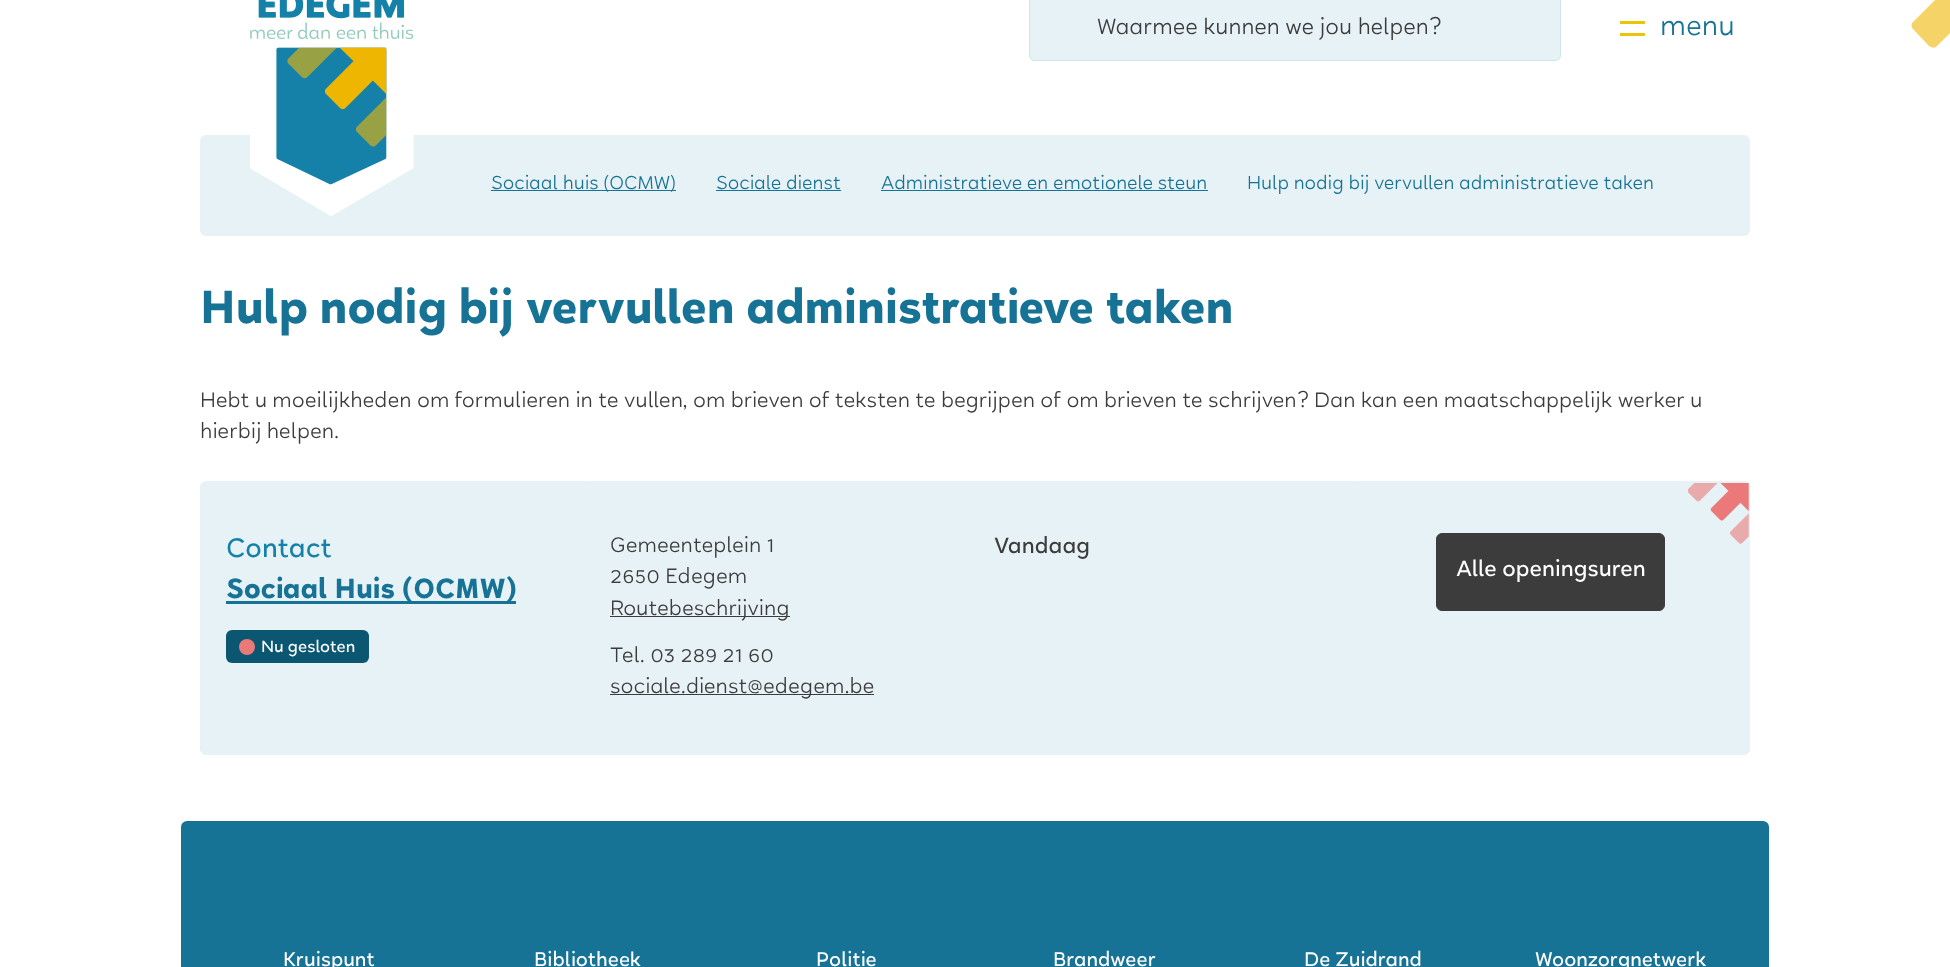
<!DOCTYPE html>
<meta charset="utf-8">
<style>body { margin: 0 } canvas { display: block }</style>
<canvas id="canvas" width="1950" height="967"></canvas>
<img id="img1" src="images/1.png" hidden>
<img id="img2" src="images/2.png" hidden>
<script>
window.onload = function () {
    const canvas = document.getElementById('canvas');
    const context = canvas.getContext('2d');
    context.miterLimit = 4;
    context.fontKerning = 'normal';

    context.fillStyle = 'rgb(255, 255, 255)';
    context.fillRect(0, 0, 1950, 967);
    context.fillStyle = 'rgb(245, 211, 102)';
    context.beginPath();
    context.moveTo(1950, -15);
    context.lineTo(1913, 22);
    context.bezierCurveTo(1911, 24, 1911, 27, 1913, 29);
    context.lineTo(1929, 46);
    context.bezierCurveTo(1932, 48, 1935, 48, 1937, 46);
    context.lineTo(1950, 33);
    context.closePath();
    context.fill();
    context.fillStyle = 'rgb(231, 242, 246)';
    context.beginPath();
    context.roundRect(200, 135, 1550, 101, 6);
    context.fill();
    context.drawImage(document.getElementById('img1'), 250, 0, 164, 216);
    context.beginPath();
    context.moveTo(1035, -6);
    context.lineTo(1096, -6);
    context.lineTo(1096, 61);
    context.lineTo(1035, 61);
    context.bezierCurveTo(1031.5, 61, 1029, 58.5, 1029, 55);
    context.lineTo(1029, 0);
    context.bezierCurveTo(1029, -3.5, 1031.5, -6, 1035, -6);
    context.closePath();
    context.fill();
    context.fillStyle = 'rgb(208, 228, 235)';
    context.beginPath();
    context.moveTo(1035, -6);
    context.lineTo(1096, -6);
    context.lineTo(1096, 61);
    context.lineTo(1035, 61);
    context.bezierCurveTo(1032, 61, 1029, 58, 1029, 55);
    context.lineTo(1029, 0);
    context.bezierCurveTo(1029, -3, 1032, -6, 1035, -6);
    context.closePath();
    context.moveTo(1035, -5);
    context.lineTo(1096, -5);
    context.lineTo(1096, 60);
    context.lineTo(1035, 60);
    context.bezierCurveTo(1032, 60, 1030, 58, 1030, 55);
    context.lineTo(1030, 0);
    context.bezierCurveTo(1030, -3, 1032, -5, 1035, -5);
    context.closePath();
    context.fill('evenodd');
    context.fillStyle = 'rgb(231, 242, 246)';
    context.beginPath();
    context.moveTo(1096, -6);
    context.lineTo(1555, -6);
    context.bezierCurveTo(1558.5, -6, 1561, -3.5, 1561, 0);
    context.lineTo(1561, 55);
    context.bezierCurveTo(1561, 58.5, 1558.5, 61, 1555, 61);
    context.lineTo(1096, 61);
    context.closePath();
    context.fill();
    context.fillStyle = 'rgb(208, 228, 235)';
    context.beginPath();
    context.moveTo(1096, -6);
    context.lineTo(1555, -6);
    context.bezierCurveTo(1558, -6, 1561, -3, 1561, 0);
    context.lineTo(1561, 55);
    context.bezierCurveTo(1561, 58, 1558, 61, 1555, 61);
    context.lineTo(1096, 61);
    context.closePath();
    context.moveTo(1096, -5);
    context.lineTo(1555, -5);
    context.bezierCurveTo(1558, -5, 1560, -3, 1560, 0);
    context.lineTo(1560, 55);
    context.bezierCurveTo(1560, 58, 1558, 60, 1555, 60);
    context.lineTo(1096, 60);
    context.closePath();
    context.fill('evenodd');
    context.fillStyle = 'rgb(236, 196, 7)';
    context.fillRect(1620, 21, 25, 3);
    context.fillRect(1620, 33, 25, 3);
    context.fillStyle = 'rgb(23, 115, 149)';
    context.fillRect(491, 190, 185, 1);
    context.fillRect(716, 190, 125, 1);
    context.fillRect(881, 190, 327, 1);
    context.fillStyle = 'rgb(231, 242, 246)';
    context.beginPath();
    context.roundRect(200.5, 481.5, 1549, 273, 5.5);
    context.fill();
    context.strokeStyle = 'rgb(231, 242, 246)';
    context.stroke();
    context.drawImage(document.getElementById('img2'), 1688, 483, 61, 61);
    context.fillStyle = 'rgb(23, 115, 149)';
    context.fillRect(226, 601, 290, 3);
    context.fillStyle = 'rgb(11, 87, 114)';
    context.beginPath();
    context.roundRect(226, 630, 143, 33, 6);
    context.fill();
    context.fillStyle = 'rgb(235, 121, 121)';
    context.beginPath();
    context.arc(247, 647, 8, 0, 2 * Math.PI);
    context.fill();
    context.fillStyle = 'rgb(60, 60, 60)';
    context.fillRect(610, 616, 180, 1);
    context.fillRect(610, 694, 264, 1);
    context.beginPath();
    context.roundRect(1436.5, 533.5, 228, 77, 5.5);
    context.fill();
    context.strokeStyle = 'rgb(60, 60, 60)';
    context.stroke();
    context.fillStyle = 'rgb(23, 115, 149)';
    context.beginPath();
    context.roundRect(181, 821, 1588, 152, 6);
    context.fill();
    context.font = '23.75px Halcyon';
    context.fillStyle = 'rgb(60, 60, 60)';
    context.fillText('Waarmee kunnen we jou helpen?', 1097, 34);
    context.font = '30px Halcyon';
    context.fillStyle = 'rgb(23, 115, 149)';
    context.fillText('menu', 1660, 35);
    context.font = '20px Halcyon';
    context.fillText('Sociaal huis (OCMW)', 491, 189);
    context.fillText('Sociale dienst', 716, 189);
    context.fillText('Administratieve en emotionele steun', 881, 189);
    context.fillText('Hulp nodig bij vervullen administratieve taken', 1247, 189);
    context.font = 'bold 50px Halcyon';
    context.fillText('Hulp nodig bij vervullen administratieve taken', 200, 323);
    context.font = '22.5px Halcyon';
    context.fillStyle = 'rgb(60, 60, 60)';
    context.fillText('Hebt u moeilijkheden om formulieren in te vullen, om brieven of teksten te begrijpen of om brieven te schrijven? Dan kan een maatschappelijk werker u', 200, 407);
    context.fillText('hierbij helpen.', 200, 438);
    context.font = '500 29px Halcyon';
    context.fillStyle = 'rgb(22, 129, 168)';
    context.fillText('Contact', 226, 557);
    context.font = 'bold 30px Halcyon';
    context.fillStyle = 'rgb(23, 115, 149)';
    context.fillText('Sociaal Huis (OCMW)', 226, 598);
    context.font = '500 17.5px Halcyon';
    context.fillStyle = 'rgb(255, 255, 255)';
    context.fillText('Nu gesloten', 261, 652);
    context.font = '22.5px Halcyon';
    context.fillStyle = 'rgb(60, 60, 60)';
    context.fillText('Gemeenteplein 1', 610, 552);
    context.fillText('2650 Edegem', 610, 583);
    context.fillText('Routebeschrijving', 610, 615);
    context.fillText('Tel. 03 289 21 60', 610, 662);
    context.fillText('sociale.dienst@', 610, 693);
    context.fillText('edegem.be', 763, 693);
    context.font = '500 23.75px Halcyon';
    context.fillText('Vandaag', 994, 553);
    context.fillStyle = 'rgb(255, 255, 255)';
    context.fillText('Alle openingsuren', 1456, 576);
    context.font = '500 21.25px Halcyon';
    context.fillText('Kruispunt', 283, 966);
    context.fillText('Bibliotheek', 534, 966);
    context.fillText('Politie', 816, 966);
    context.fillText('Brandweer', 1053, 966);
    context.fillText('De Zuidrand', 1304, 966);
    context.fillText('Woonzorgnetwerk', 1535, 966);
};
</script>
